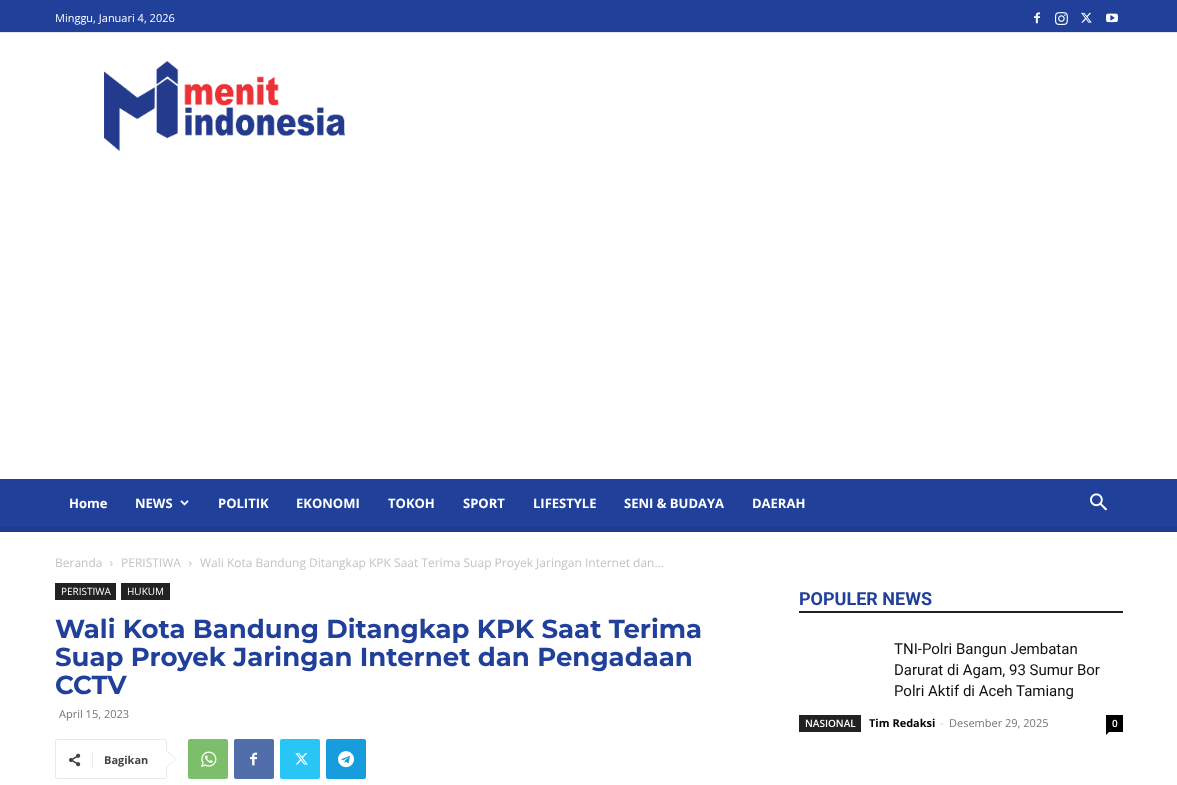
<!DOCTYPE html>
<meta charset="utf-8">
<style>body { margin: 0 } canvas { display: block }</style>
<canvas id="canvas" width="1177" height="785"></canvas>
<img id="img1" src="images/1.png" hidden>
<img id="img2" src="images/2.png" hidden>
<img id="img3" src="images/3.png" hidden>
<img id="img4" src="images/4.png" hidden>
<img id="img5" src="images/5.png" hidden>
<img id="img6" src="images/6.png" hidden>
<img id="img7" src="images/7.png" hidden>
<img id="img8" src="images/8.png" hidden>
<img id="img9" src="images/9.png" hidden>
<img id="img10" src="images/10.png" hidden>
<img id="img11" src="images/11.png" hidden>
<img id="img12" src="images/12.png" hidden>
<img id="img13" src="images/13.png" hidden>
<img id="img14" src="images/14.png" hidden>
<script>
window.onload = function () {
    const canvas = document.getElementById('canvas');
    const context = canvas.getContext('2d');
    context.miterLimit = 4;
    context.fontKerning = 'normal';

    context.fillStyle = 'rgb(255, 255, 255)';
    context.fillRect(0, 0, 1177, 785);
    context.fillStyle = 'rgb(33, 64, 154)';
    context.fillRect(0, 0, 1177, 32);
    context.fillStyle = 'rgb(233, 233, 233)';
    context.fillRect(0, 32, 1177, 1);
    context.drawImage(document.getElementById('img1'), 1034, 12, 6, 12);
    context.drawImage(document.getElementById('img2'), 1055, 12, 13, 13);
    context.drawImage(document.getElementById('img3'), 1081, 12, 11, 11);
    context.drawImage(document.getElementById('img4'), 1106, 13, 12, 10);
    context.drawImage(document.getElementById('img5'), 104, 61, 241, 90);
    context.fillStyle = 'rgb(33, 64, 154)';
    context.fillRect(0, 479, 1177, 53);
    context.drawImage(document.getElementById('img6'), 180, 500, 9, 6);
    context.drawImage(document.getElementById('img7'), 1090, 493, 17, 18);
    context.drawImage(document.getElementById('img8'), 0, 527, 1177, 5);
    context.drawImage(document.getElementById('img9'), 110, 561, 3, 5);
    context.drawImage(document.getElementById('img9'), 189, 561, 3, 5);
    context.fillStyle = 'rgb(34, 34, 34)';
    context.fillRect(55, 583, 61, 17);
    context.fillRect(121, 583, 49, 17);
    context.beginPath();
    context.roundRect(55.5, 739.5, 111, 39, 1.5);
    context.strokeStyle = 'rgb(233, 233, 233)';
    context.stroke();
    context.fillStyle = 'rgb(233, 233, 233)';
    context.beginPath();
    context.moveTo(166, 768);
    context.lineTo(166, 750);
    context.lineTo(177, 759);
    context.closePath();
    context.fill();
    context.drawImage(document.getElementById('img10'), 69, 753, 12, 14);
    context.fillStyle = 'rgb(235, 235, 235)';
    context.fillRect(92, 752, 1, 16);
    context.fillStyle = 'rgb(255, 255, 255)';
    context.beginPath();
    context.moveTo(166, 767);
    context.lineTo(166, 751);
    context.lineTo(176, 759);
    context.closePath();
    context.fill();
    context.fillStyle = 'rgb(123, 191, 106)';
    context.beginPath();
    context.roundRect(188, 739, 40, 40, 2);
    context.fill();
    context.drawImage(document.getElementById('img11'), 201, 751, 16, 16);
    context.fillStyle = 'rgb(81, 110, 171)';
    context.beginPath();
    context.roundRect(234, 739, 40, 40, 2);
    context.fill();
    context.drawImage(document.getElementById('img12'), 250, 752, 7, 14);
    context.fillStyle = 'rgb(41, 197, 246)';
    context.beginPath();
    context.roundRect(280, 739, 40, 40, 2);
    context.fill();
    context.drawImage(document.getElementById('img13'), 295, 753, 13, 12);
    context.fillStyle = 'rgb(23, 156, 222)';
    context.beginPath();
    context.roundRect(326, 739, 40, 40, 2);
    context.fill();
    context.drawImage(document.getElementById('img14'), 338, 751, 16, 17);
    context.fillStyle = 'rgb(34, 34, 34)';
    context.fillRect(799, 611, 324, 2);
    context.fillRect(799, 715, 62, 17);
    context.fillStyle = 'rgb(0, 0, 0)';
    context.fillRect(1106, 715, 17, 17);
    context.beginPath();
    context.moveTo(1106, 732);
    context.lineTo(1109, 732);
    context.lineTo(1106, 735);
    context.closePath();
    context.fill();
    context.font = '11px Open Sans';
    context.fillStyle = 'rgb(255, 255, 255)';
    context.fillText('Minggu, Januari 4, 2026', 55, 22);
    context.font = 'bold 13px Open Sans';
    context.fillText('Home', 69, 508);
    context.fillText('NEWS', 135, 508);
    context.fillText('POLITIK', 218, 508);
    context.fillText('EKONOMI', 296, 508);
    context.fillText('TOKOH', 388, 508);
    context.fillText('SPORT', 463, 508);
    context.fillText('LIFESTYLE', 533, 508);
    context.fillText('SENI & BUDAYA', 624, 508);
    context.fillText('DAERAH', 752, 508);
    context.font = '12px Open Sans';
    context.fillStyle = 'rgb(195, 195, 195)';
    context.fillText('Beranda', 55, 567);
    context.fillText('PERISTIWA', 121, 567);
    context.fillText('Wali Kota Bandung Ditangkap KPK Saat Terima Suap Proyek Jaringan Internet dan...', 200, 567);
    context.font = '10px Open Sans';
    context.fillStyle = 'rgb(255, 255, 255)';
    context.fillText('PERISTIWA', 61, 595);
    context.fillText('HUKUM', 127, 595);
    context.font = 'bold 26px Montserrat';
    context.fillStyle = 'rgb(33, 64, 154)';
    context.fillText('Wali Kota Bandung Ditangkap KPK Saat Terima', 55, 638);
    context.fillText('Suap Proyek Jaringan Internet dan Pengadaan', 55, 666);
    context.fillText('CCTV', 55, 694);
    context.font = '11px Open Sans';
    context.fillStyle = 'rgb(118, 118, 118)';
    context.fillText('April 15, 2023', 59, 718);
    context.font = 'bold 11px Open Sans';
    context.fillStyle = 'rgb(68, 68, 68)';
    context.fillText('Bagikan', 104, 764);
    context.font = 'bold 18px Roboto';
    context.fillStyle = 'rgb(33, 64, 154)';
    context.fillText('POPULER NEWS', 799, 605);
    context.font = '15px Roboto';
    context.fillStyle = 'rgb(17, 17, 17)';
    context.fillText('TNI-Polri Bangun Jembatan', 894, 654);
    context.fillText('Darurat di Agam, 93 Sumur Bor', 894, 675);
    context.fillText('Polri Aktif di Aceh Tamiang', 894, 696);
    context.font = '600 10px Open Sans';
    context.fillStyle = 'rgb(255, 255, 255)';
    context.fillText('NASIONAL', 805, 727);
    context.font = 'bold 11px Open Sans';
    context.fillStyle = 'rgb(0, 0, 0)';
    context.fillText('Tim Redaksi', 869, 727);
    context.font = '11px Open Sans';
    context.fillStyle = 'rgb(204, 204, 204)';
    context.fillText('-', 940, 727);
    context.fillStyle = 'rgb(118, 118, 118)';
    context.fillText('Desember 29, 2025', 949, 727);
    context.font = '600 10px Open Sans';
    context.fillStyle = 'rgb(255, 255, 255)';
    context.fillText('0', 1112, 727);
};
</script>
